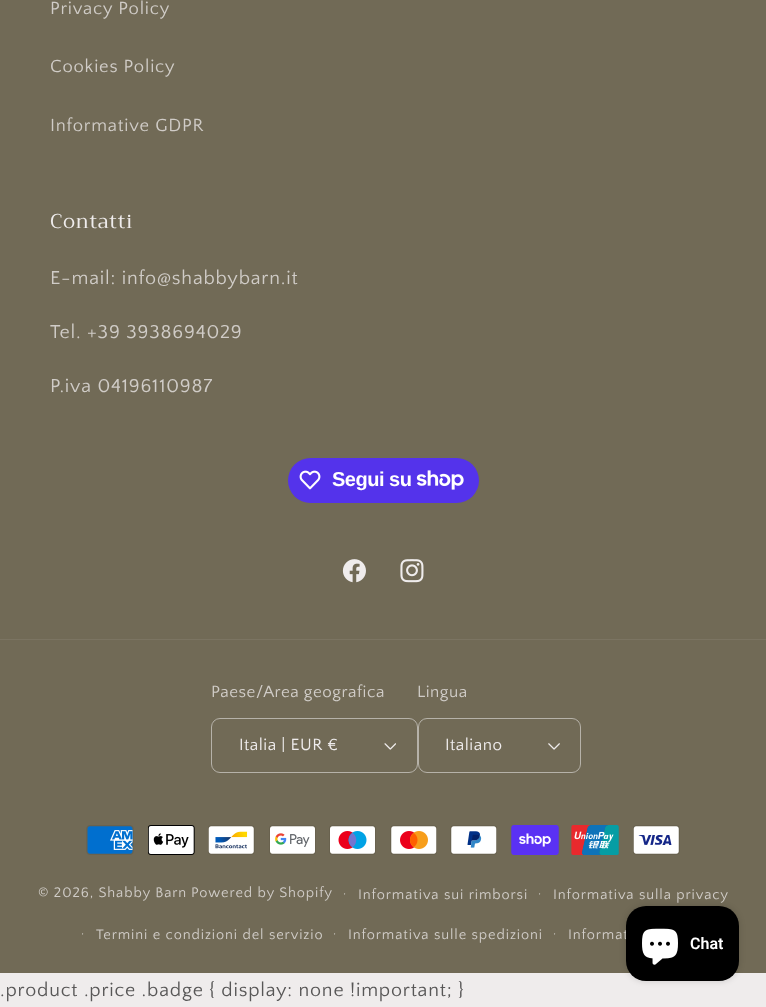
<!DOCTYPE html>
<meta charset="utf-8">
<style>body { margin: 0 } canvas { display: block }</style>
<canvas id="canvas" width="766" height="1007"></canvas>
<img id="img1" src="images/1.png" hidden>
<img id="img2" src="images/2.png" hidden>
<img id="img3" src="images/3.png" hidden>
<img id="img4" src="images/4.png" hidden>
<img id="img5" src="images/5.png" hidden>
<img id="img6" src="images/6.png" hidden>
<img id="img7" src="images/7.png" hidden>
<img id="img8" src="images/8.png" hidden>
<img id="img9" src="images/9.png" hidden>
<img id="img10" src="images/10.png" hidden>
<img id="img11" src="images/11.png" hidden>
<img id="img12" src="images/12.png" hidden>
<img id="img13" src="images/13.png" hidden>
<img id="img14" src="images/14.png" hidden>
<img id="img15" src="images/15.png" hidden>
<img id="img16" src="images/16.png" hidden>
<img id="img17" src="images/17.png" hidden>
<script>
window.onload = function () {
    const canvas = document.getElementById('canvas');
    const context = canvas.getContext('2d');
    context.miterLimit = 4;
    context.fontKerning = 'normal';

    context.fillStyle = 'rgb(239, 236, 236)';
    context.fillRect(0, 0, 766, 1007);
    context.fillStyle = 'rgb(113, 106, 86)';
    context.fillRect(0, 0, 766, 973);
    context.fillStyle = 'rgb(84, 51, 235)';
    context.beginPath();
    context.roundRect(288, 458, 191, 45, 22.5);
    context.fill();
    context.drawImage(document.getElementById('img1'), 299, 470, 22, 20);
    context.drawImage(document.getElementById('img2'), 416, 470, 48, 20);
    context.drawImage(document.getElementById('img3'), 342, 559, 24, 24);
    context.drawImage(document.getElementById('img4'), 400, 559, 24, 24);
    context.fillStyle = 'rgb(123, 116, 98)';
    context.fillRect(0, 639, 766, 1);
    context.drawImage(document.getElementById('img5'), 384, 743, 12, 7);
    context.beginPath();
    context.roundRect(211.5, 718.5, 206, 54, 8.5);
    context.strokeStyle = 'rgb(182, 178, 169)';
    context.stroke();
    context.drawImage(document.getElementById('img6'), 548, 743, 12, 7);
    context.beginPath();
    context.roundRect(418.5, 718.5, 162, 54, 8.5);
    context.stroke();
    context.drawImage(document.getElementById('img7'), 86, 825, 48, 30);
    context.drawImage(document.getElementById('img8'), 148, 825, 47, 30);
    context.drawImage(document.getElementById('img9'), 208, 825, 47, 30);
    context.drawImage(document.getElementById('img10'), 269, 825, 47, 30);
    context.drawImage(document.getElementById('img11'), 329, 825, 47, 30);
    context.drawImage(document.getElementById('img12'), 390, 825, 47, 30);
    context.drawImage(document.getElementById('img13'), 450, 825, 47, 30);
    context.drawImage(document.getElementById('img14'), 511, 825, 48, 30);
    context.drawImage(document.getElementById('img15'), 571, 825, 48, 30);
    context.drawImage(document.getElementById('img16'), 633, 825, 47, 30);
    context.fillStyle = 'rgba(0, 0, 0, 0.15)';
    context.filter = 'blur(3px)';
    context.beginPath();
    context.roundRect(626, 906, 113, 75, 20);
    context.fill();
    context.filter = 'none';
    context.letterSpacing = '0.8px';
    context.font = '18.4px Quattrocento Sans';
    context.fillStyle = 'rgb(208, 204, 199)';
    context.fillText('Privacy Policy', 50, 14);
    context.fillText('Cookies Policy', 50, 72);
    context.fillText('Informative GDPR', 50, 131);
    context.letterSpacing = '0.75px';
    context.font = '20px Trirong';
    context.fillStyle = 'rgb(239, 236, 236)';
    context.fillText('Contatti', 50, 228);
    context.letterSpacing = '0.8px';
    context.font = '19.7px Quattrocento Sans';
    context.fillStyle = 'rgb(208, 204, 199)';
    context.fillText('E-mail: info@shabbybarn.it', 50, 284);
    context.fillText('Tel. +39 3938694029', 50, 338);
    context.fillText('P.iva 04196110987', 50, 392);
    context.letterSpacing = '-0.5px';
    context.font = 'bold 20px Liberation Sans';
    context.fillStyle = 'rgb(255, 255, 255)';
    context.fillText('Segui su', 332, 486);
    context.letterSpacing = '0.5px';
    context.font = '17px Quattrocento Sans';
    context.fillStyle = 'rgb(208, 204, 199)';
    context.fillText('Paese/Area geografica', 211, 697);
    context.fillStyle = 'rgb(239, 236, 236)';
    context.fillText('Italia | EUR €', 239, 750);
    context.fillStyle = 'rgb(208, 204, 199)';
    context.fillText('Lingua', 417, 697);
    context.fillStyle = 'rgb(239, 236, 236)';
    context.fillText('Italiano', 445, 750);
    context.letterSpacing = '0.9px';
    context.font = '14.5px Quattrocento Sans';
    context.fillStyle = 'rgb(208, 204, 199)';
    context.fillText('© 2026, Shabby Barn', 38, 897);
    context.fillText('Powered by Shopify', 191, 897);
    context.font = '13px Quattrocento Sans';
    context.fillText('·', 343, 897);
    context.font = '14.5px Quattrocento Sans';
    context.fillText('Informativa sui rimborsi', 358, 899);
    context.font = '13px Quattrocento Sans';
    context.fillText('·', 538, 897);
    context.font = '14.5px Quattrocento Sans';
    context.fillText('Informativa sulla privacy', 553, 899);
    context.font = '13px Quattrocento Sans';
    context.fillText('·', 81, 937);
    context.font = '14.5px Quattrocento Sans';
    context.fillText('Termini e condizioni del servizio', 96, 939);
    context.font = '13px Quattrocento Sans';
    context.fillText('·', 333, 937);
    context.font = '14.5px Quattrocento Sans';
    context.fillText('Informativa sulle spedizioni', 348, 939);
    context.font = '13px Quattrocento Sans';
    context.fillText('·', 553, 937);
    context.font = '14.5px Quattrocento Sans';
    context.fillText('Informat', 568, 939);
    context.fillStyle = 'rgb(0, 0, 0)';
    context.beginPath();
    context.roundRect(626, 906, 113, 75, 20);
    context.fill();
    context.drawImage(document.getElementById('img17'), 642, 928, 36, 37);
    context.letterSpacing = '0px';
    context.font = '600 16px Roboto';
    context.fillStyle = 'rgb(255, 255, 255)';
    context.fillText('Chat', 690, 949);
    context.letterSpacing = '0.8px';
    context.font = '19.7px Quattrocento Sans';
    context.fillStyle = 'rgb(88, 87, 87)';
    context.fillText('.product .price .badge { display: none !important; }', 0, 996);
};
</script>
